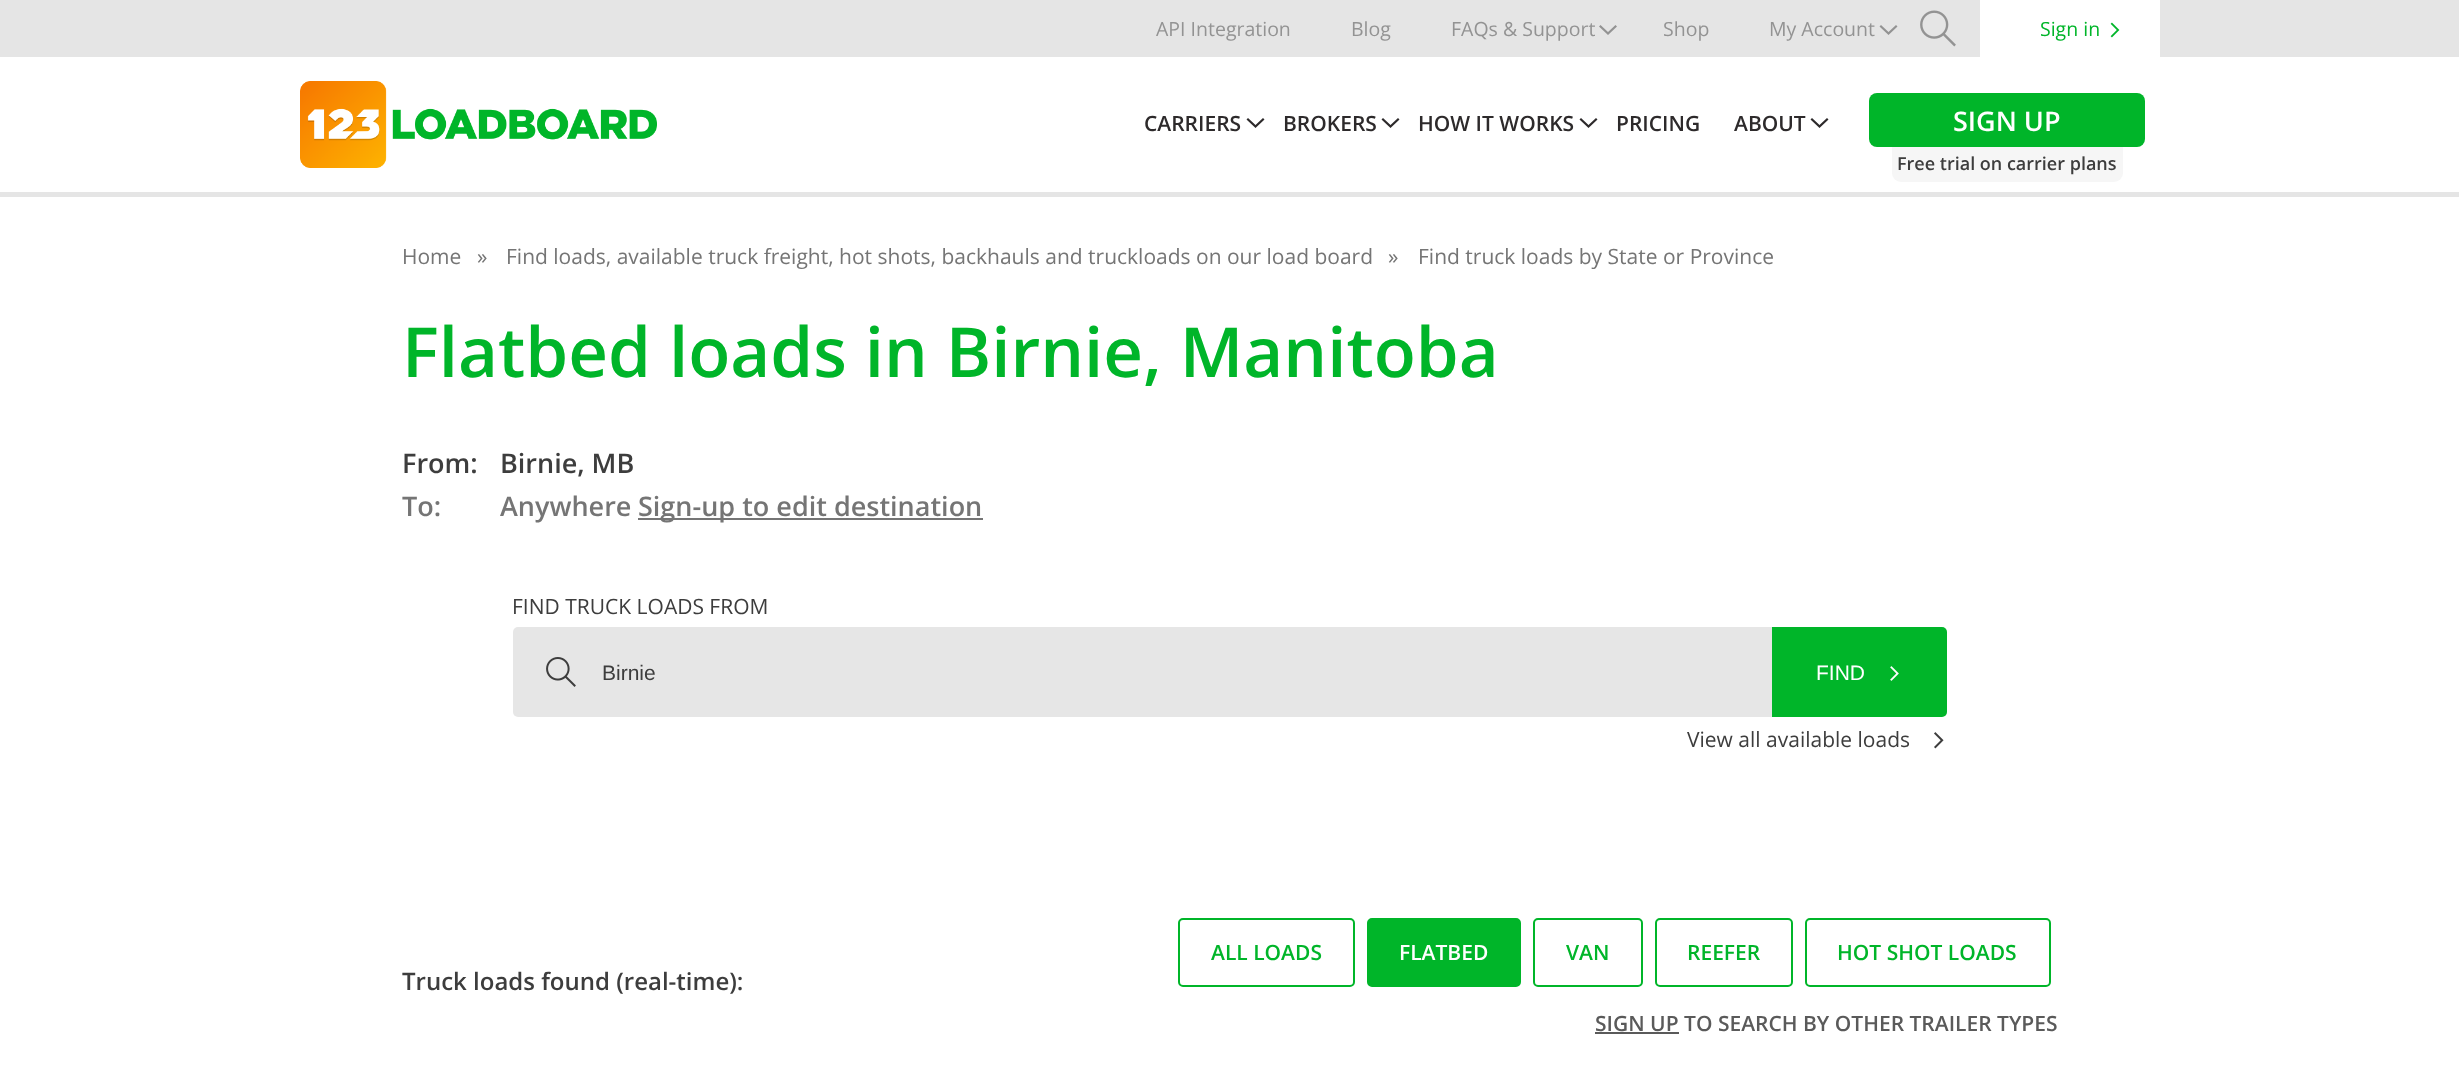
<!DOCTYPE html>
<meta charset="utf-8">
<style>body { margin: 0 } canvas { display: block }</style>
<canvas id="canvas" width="2459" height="1069"></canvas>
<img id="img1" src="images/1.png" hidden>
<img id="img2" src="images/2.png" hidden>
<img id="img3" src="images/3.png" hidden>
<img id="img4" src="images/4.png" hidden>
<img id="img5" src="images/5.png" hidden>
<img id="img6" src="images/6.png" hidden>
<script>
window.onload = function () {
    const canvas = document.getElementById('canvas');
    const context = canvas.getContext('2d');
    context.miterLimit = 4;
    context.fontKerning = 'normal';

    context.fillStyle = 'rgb(255, 255, 255)';
    context.fillRect(0, 0, 2459, 1069);
    context.fillStyle = 'rgb(229, 229, 229)';
    context.fillRect(0, 0, 2459, 57);
    context.fillStyle = 'rgb(147, 147, 147)';
    context.beginPath();
    context.moveTo(1615.5, 25);
    context.lineTo(1617, 26.5);
    context.lineTo(1608, 35);
    context.lineTo(1599, 26.5);
    context.lineTo(1600.5, 25);
    context.lineTo(1608, 32);
    context.closePath();
    context.fill();
    context.beginPath();
    context.moveTo(1896, 25);
    context.lineTo(1897.5, 26.5);
    context.lineTo(1888.5, 35);
    context.lineTo(1879.5, 26.5);
    context.lineTo(1881, 25);
    context.lineTo(1888.5, 32);
    context.closePath();
    context.fill();
    context.drawImage(document.getElementById('img1'), 1920, 10, 36, 37);
    context.fillStyle = 'rgb(255, 255, 255)';
    context.fillRect(1980, 0, 180, 57);
    context.drawImage(document.getElementById('img2'), 2110, 22, 10, 16);
    context.fillStyle = 'rgb(229, 229, 229)';
    context.fillRect(0, 192, 2459, 5);
    context.drawImage(document.getElementById('img3'), 300, 81, 357, 87);
    context.fillStyle = 'rgb(45, 42, 43)';
    context.beginPath();
    context.moveTo(1263, 118);
    context.lineTo(1264.5, 119.5);
    context.lineTo(1255.5, 128);
    context.lineTo(1246.5, 119.5);
    context.lineTo(1248, 118);
    context.lineTo(1255.5, 125);
    context.closePath();
    context.fill();
    context.beginPath();
    context.moveTo(1398, 118);
    context.lineTo(1399.5, 119.5);
    context.lineTo(1390.5, 128);
    context.lineTo(1381.5, 119.5);
    context.lineTo(1383, 118);
    context.lineTo(1390.5, 125);
    context.closePath();
    context.fill();
    context.beginPath();
    context.moveTo(1596, 118);
    context.lineTo(1597.5, 119.5);
    context.lineTo(1588.5, 128);
    context.lineTo(1579.5, 119.5);
    context.lineTo(1581, 118);
    context.lineTo(1588.5, 125);
    context.closePath();
    context.fill();
    context.beginPath();
    context.moveTo(1827, 118);
    context.lineTo(1828.5, 119.5);
    context.lineTo(1819.5, 128);
    context.lineTo(1810.5, 119.5);
    context.lineTo(1812, 118);
    context.lineTo(1819.5, 125);
    context.closePath();
    context.fill();
    context.fillStyle = 'rgb(0, 181, 41)';
    context.beginPath();
    context.roundRect(1869, 93, 276, 54, 8);
    context.fill();
    context.fillStyle = 'rgb(246, 246, 246)';
    context.beginPath();
    context.roundRect(1892, 147, 231, 35, [0, 0, 9, 9]);
    context.fill();
    context.fillStyle = 'rgb(117, 117, 117)';
    context.fillRect(638, 518, 345, 2);
    context.fillStyle = 'rgb(230, 230, 230)';
    context.beginPath();
    context.roundRect(513, 627, 1316, 90, [5, 0, 0, 5]);
    context.fill();
    context.drawImage(document.getElementById('img4'), 546, 657, 30, 30);
    context.fillStyle = 'rgb(0, 181, 41)';
    context.beginPath();
    context.roundRect(1772, 627, 175, 90, [0, 5, 5, 0]);
    context.fill();
    context.drawImage(document.getElementById('img5'), 1890, 666, 9, 15);
    context.drawImage(document.getElementById('img6'), 1934, 732, 10, 17);
    context.beginPath();
    context.roundRect(1179, 919, 175, 67, 4);
    context.strokeStyle = 'rgb(0, 181, 41)';
    context.lineWidth = 2;
    context.stroke();
    context.beginPath();
    context.roundRect(1368, 919, 152, 67, 4);
    context.fill();
    context.stroke();
    context.beginPath();
    context.roundRect(1534, 919, 108, 67, 4);
    context.stroke();
    context.beginPath();
    context.roundRect(1656, 919, 136, 67, 4);
    context.stroke();
    context.beginPath();
    context.roundRect(1806, 919, 244, 67, 4);
    context.stroke();
    context.fillStyle = 'rgb(90, 90, 90)';
    context.fillRect(1595, 1032, 84, 2);
    context.font = '19.5px Open Sans';
    context.fillStyle = 'rgb(147, 147, 147)';
    context.fillText('API Integration', 1156, 36);
    context.fillText('Blog', 1351, 36);
    context.fillText('FAQs & Support', 1451, 36);
    context.fillText('Shop', 1663, 36);
    context.fillText('My Account', 1769, 36);
    context.fillStyle = 'rgb(0, 181, 41)';
    context.fillText('Sign in', 2040, 36);
    context.font = '600 21px Open Sans';
    context.fillStyle = 'rgb(45, 42, 43)';
    context.fillText('CARRIERS', 1144, 131);
    context.fillText('BROKERS', 1283, 131);
    context.fillText('HOW IT WORKS', 1418, 131);
    context.fillText('PRICING', 1616, 131);
    context.fillText('ABOUT', 1734, 131);
    context.font = '600 27px Open Sans';
    context.fillStyle = 'rgb(255, 255, 255)';
    context.fillText('SIGN UP', 1953, 131);
    context.font = '600 18px Open Sans';
    context.fillStyle = 'rgb(61, 61, 61)';
    context.fillText('Free trial on carrier plans', 1897, 170);
    context.font = '21px Open Sans';
    context.fillStyle = 'rgb(117, 117, 117)';
    context.fillText('Home', 402, 264);
    context.fillText('»', 477, 264);
    context.fillText('Find loads, available truck freight, hot shots, backhauls and truckloads on our load board', 506, 264);
    context.fillText('»', 1388, 264);
    context.fillText('Find truck loads by State or Province', 1418, 264);
    context.font = '600 69px Open Sans';
    context.fillStyle = 'rgb(0, 181, 41)';
    context.fillText('Flatbed loads in Birnie, Manitoba', 402, 377);
    context.font = '600 27px Open Sans';
    context.fillStyle = 'rgb(61, 61, 61)';
    context.fillText('From:', 402, 473);
    context.fillText('Birnie, MB', 500, 473);
    context.fillStyle = 'rgb(117, 117, 117)';
    context.fillText('To:', 402, 516);
    context.fillText('Anywhere', 500, 516);
    context.fillText('Sign-up to edit destination', 638, 516);
    context.font = '21px Open Sans';
    context.fillStyle = 'rgb(61, 61, 61)';
    context.fillText('FIND TRUCK LOADS FROM', 512, 614);
    context.font = '21px Liberation Sans';
    context.fillText('Birnie', 602, 680);
    context.fillStyle = 'rgb(255, 255, 255)';
    context.fillText('FIND', 1816, 680);
    context.font = '21px Open Sans';
    context.fillStyle = 'rgb(61, 61, 61)';
    context.fillText('View all available loads', 1687, 747);
    context.font = '600 24px Open Sans';
    context.fillText('Truck loads found (real-time):', 402, 990);
    context.font = '600 21px Open Sans';
    context.fillStyle = 'rgb(0, 181, 41)';
    context.fillText('ALL LOADS', 1211, 960);
    context.fillStyle = 'rgb(255, 255, 255)';
    context.fillText('FLATBED', 1399, 960);
    context.fillStyle = 'rgb(0, 181, 41)';
    context.fillText('VAN', 1566, 960);
    context.fillText('REEFER', 1687, 960);
    context.fillText('HOT SHOT LOADS', 1837, 960);
    context.fillStyle = 'rgb(90, 90, 90)';
    context.fillText('SIGN UP TO SEARCH BY OTHER TRAILER TYPES', 1595, 1031);
};
</script>
